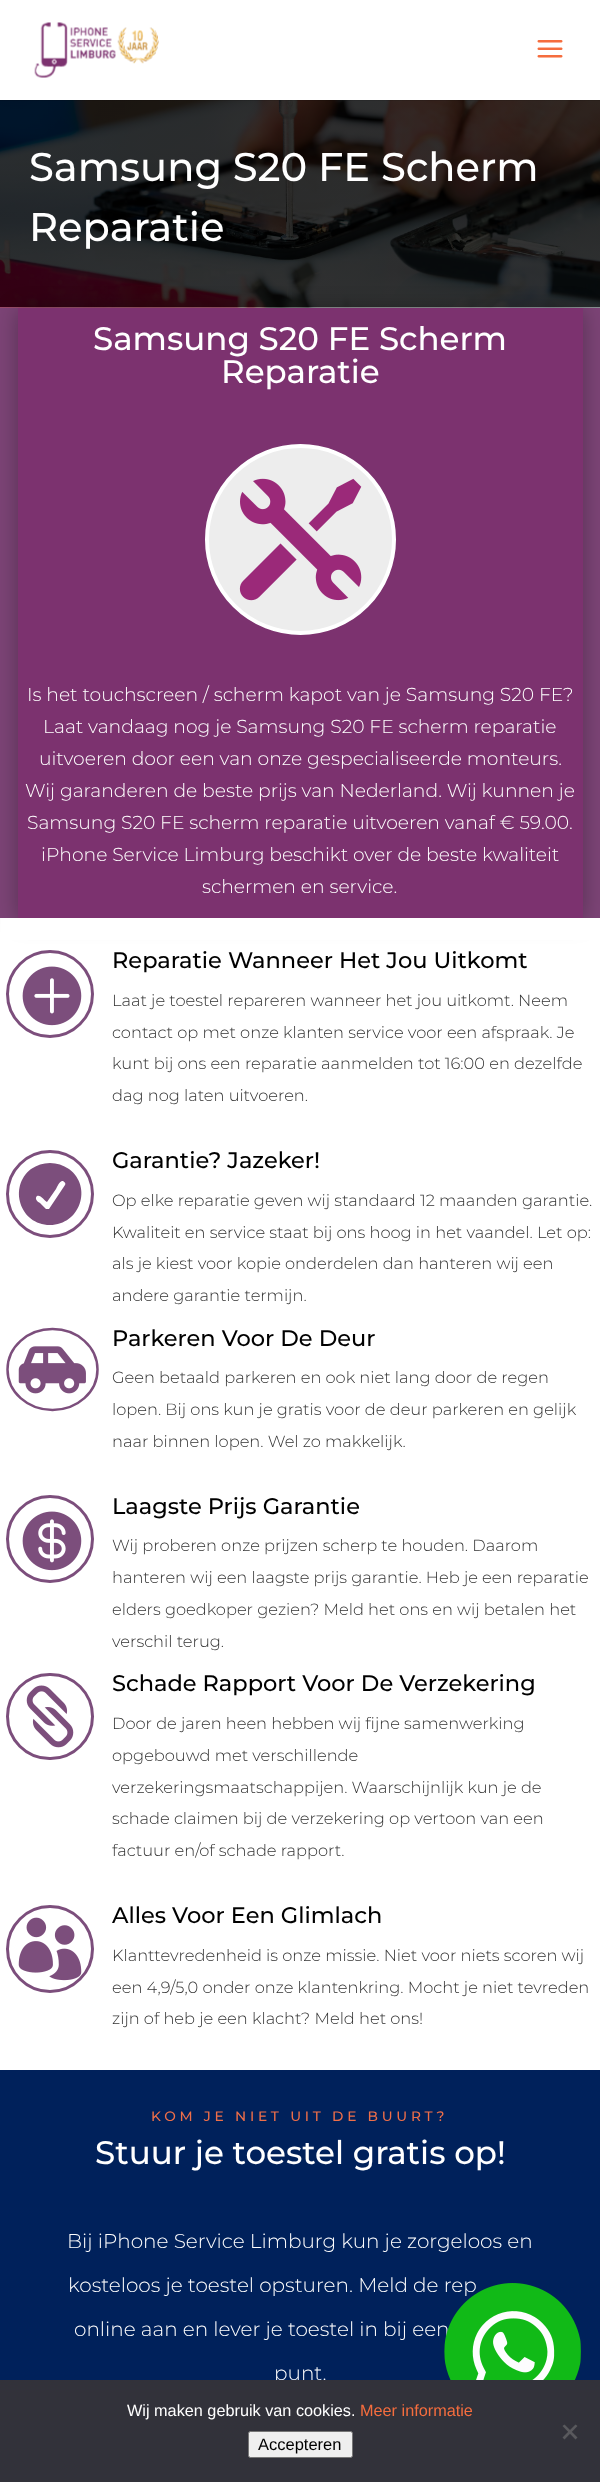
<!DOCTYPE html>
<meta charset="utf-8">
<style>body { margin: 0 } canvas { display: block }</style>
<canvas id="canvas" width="600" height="2482"></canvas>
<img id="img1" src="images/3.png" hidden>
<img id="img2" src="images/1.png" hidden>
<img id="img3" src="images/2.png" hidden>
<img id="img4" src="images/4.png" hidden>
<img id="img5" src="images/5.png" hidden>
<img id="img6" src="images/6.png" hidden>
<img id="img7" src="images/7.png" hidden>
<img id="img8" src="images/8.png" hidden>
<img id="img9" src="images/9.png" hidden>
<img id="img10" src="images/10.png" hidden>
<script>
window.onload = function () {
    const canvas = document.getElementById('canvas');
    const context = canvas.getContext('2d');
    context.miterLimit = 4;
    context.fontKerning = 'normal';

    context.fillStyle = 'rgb(255, 255, 255)';
    context.fillRect(0, 0, 600, 2482);
    context.drawImage(document.getElementById('img1'), 0, 100, 600, 208);
    context.fillStyle = 'rgba(0, 0, 0, 0.1)';
    context.fillRect(0, 100, 600, 1);
    context.drawImage(document.getElementById('img2'), 34, 22, 125, 56);
    context.drawImage(document.getElementById('img3'), 537, 40, 26, 18);
    context.fillStyle = 'rgb(124, 68, 118)';
    context.fillRect(0, 308, 600, 610);
    context.fillStyle = 'rgba(0, 0, 0, 0.3)';
    context.filter = 'blur(11px)';
    context.beginPath();
    context.rect(18, 310, 565, 610);
    context.fill();
    context.filter = 'none';
    context.fillStyle = 'rgb(124, 50, 111)';
    context.fillRect(18, 308, 565, 610);
    context.fillStyle = 'rgb(237, 237, 237)';
    context.beginPath();
    context.arc(300.5, 539.5, 93.5, 0, 2 * Math.PI);
    context.fill();
    context.strokeStyle = 'rgb(255, 255, 255)';
    context.lineWidth = 4;
    context.stroke();
    context.drawImage(document.getElementById('img4'), 239, 478, 123, 123);
    context.fillStyle = 'rgb(255, 255, 255)';
    context.fillRect(1, 918, 599, 22);
    context.beginPath();
    context.arc(50, 994, 42.5, 0, 2 * Math.PI);
    context.strokeStyle = 'rgb(124, 78, 124)';
    context.lineWidth = 3;
    context.stroke();
    context.drawImage(document.getElementById('img5'), 22, 966, 60, 60);
    context.beginPath();
    context.arc(50, 1194, 42.5, 0, 2 * Math.PI);
    context.stroke();
    context.fillStyle = 'rgb(124, 78, 124)';
    context.beginPath();
    context.moveTo(50, 1163);
    context.bezierCurveTo(43, 1163, 37, 1165, 31, 1169);
    context.bezierCurveTo(8, 1187, 20, 1225, 50, 1225);
    context.bezierCurveTo(80, 1225, 93, 1187, 69, 1169);
    context.bezierCurveTo(63, 1165, 57, 1163, 50, 1163);
    context.closePath();
    context.moveTo(65, 1185);
    context.lineTo(49, 1209);
    context.lineTo(48, 1209);
    context.lineTo(46, 1209);
    context.lineTo(40, 1203);
    context.bezierCurveTo(38, 1202, 34, 1199, 37, 1196);
    context.bezierCurveTo(40, 1194, 45, 1201, 47, 1202);
    context.lineTo(56, 1189);
    context.bezierCurveTo(57, 1187, 60, 1180, 63, 1181);
    context.bezierCurveTo(65, 1182, 66, 1184, 65, 1185);
    context.closePath();
    context.fill();
    context.beginPath();
    context.moveTo(52.5, 1329);
    context.bezierCurveTo(77.5, 1329, 97.5, 1347, 97.5, 1369.5);
    context.bezierCurveTo(97.5, 1392, 77.5, 1410, 52.5, 1410);
    context.bezierCurveTo(27.5, 1410, 7.5, 1392, 7.5, 1369.5);
    context.bezierCurveTo(7.5, 1347, 27.5, 1329, 52.5, 1329);
    context.closePath();
    context.lineWidth = 2.5;
    context.stroke();
    context.drawImage(document.getElementById('img6'), 18, 1346, 68, 48);
    context.beginPath();
    context.arc(50, 1539, 42.5, 0, 2 * Math.PI);
    context.lineWidth = 3;
    context.stroke();
    context.drawImage(document.getElementById('img7'), 22, 1511, 60, 60);
    context.beginPath();
    context.roundRect(7.5, 1674.5, 85, 84, 42);
    context.stroke();
    context.drawImage(document.getElementById('img8'), 26, 1685, 48, 63);
    context.beginPath();
    context.arc(50, 1949, 42.5, 0, 2 * Math.PI);
    context.stroke();
    context.drawImage(document.getElementById('img9'), 18, 1917, 64, 64);
    context.fillStyle = 'rgb(0, 33, 91)';
    context.fillRect(0, 2070, 600, 310);
    context.font = '500 40px Montserrat';
    context.fillStyle = 'rgb(255, 255, 255)';
    context.fillText('Samsung S20 FE Scherm', 29, 181);
    context.fillText('Reparatie', 29, 241);
    context.font = '500 32.5px Montserrat';
    context.fillText('Samsung S20 FE Scherm', 93, 350);
    context.fillText('Reparatie', 221, 383);
    context.font = '300 18.75px Montserrat';
    context.fillText('Is het touchscreen / scherm kapot van je Samsung S20 FE?', 27, 701);
    context.fillText('Laat vandaag nog je Samsung S20 FE scherm reparatie', 43, 733);
    context.fillText('uitvoeren door een van onze gespecialiseerde monteurs.', 39, 765);
    context.fillText('Wij garanderen de beste prijs van Nederland. Wij kunnen je', 25, 797);
    context.fillText('Samsung S20 FE scherm reparatie uitvoeren vanaf € 59.00.', 27, 829);
    context.fillText('iPhone Service Limburg beschikt over de beste kwaliteit', 41, 861);
    context.fillText('schermen en service.', 202, 893);
    context.font = '500 22.5px Montserrat';
    context.fillStyle = 'rgb(0, 0, 0)';
    context.fillText('Reparatie Wanneer Het Jou Uitkomt', 112, 968);
    context.font = '300 16.25px Montserrat';
    context.fillStyle = 'rgb(51, 51, 51)';
    context.fillText('Laat je toestel repareren wanneer het jou uitkomt. Neem', 112, 1006);
    context.fillText('contact op met onze klanten service voor een afspraak. Je', 112, 1038);
    context.fillText('kunt bij ons een reparatie aanmelden tot 16:00 en dezelfde', 112, 1069);
    context.fillText('dag nog laten uitvoeren.', 112, 1101);
    context.font = '500 22.5px Montserrat';
    context.fillStyle = 'rgb(0, 0, 0)';
    context.fillText('Garantie? Jazeker!', 112, 1168);
    context.font = '300 16.25px Montserrat';
    context.fillStyle = 'rgb(51, 51, 51)';
    context.fillText('Op elke reparatie geven wij standaard 12 maanden garantie.', 112, 1206);
    context.fillText('Kwaliteit en service staat bij ons hoog in het vaandel. Let op:', 112, 1238);
    context.fillText('als je kiest voor kopie onderdelen dan hanteren wij een', 112, 1269);
    context.fillText('andere garantie termijn.', 112, 1301);
    context.font = '500 22.5px Montserrat';
    context.fillStyle = 'rgb(0, 0, 0)';
    context.fillText('Parkeren Voor De Deur', 112, 1346);
    context.font = '300 16.25px Montserrat';
    context.fillStyle = 'rgb(51, 51, 51)';
    context.fillText('Geen betaald parkeren en ook niet lang door de regen', 112, 1383);
    context.fillText('lopen. Bij ons kun je gratis voor de deur parkeren en gelijk', 112, 1415);
    context.fillText('naar binnen lopen. Wel zo makkelijk.', 112, 1447);
    context.font = '500 22.5px Montserrat';
    context.fillStyle = 'rgb(0, 0, 0)';
    context.fillText('Laagste Prijs Garantie', 112, 1514);
    context.font = '300 16.25px Montserrat';
    context.fillStyle = 'rgb(51, 51, 51)';
    context.fillText('Wij proberen onze prijzen scherp te houden. Daarom', 112, 1551);
    context.fillText('hanteren wij een laagste prijs garantie. Heb je een reparatie', 112, 1583);
    context.fillText('elders goedkoper gezien? Meld het ons en wij betalen het', 112, 1615);
    context.fillText('verschil terug.', 112, 1647);
    context.font = '500 22.5px Montserrat';
    context.fillStyle = 'rgb(0, 0, 0)';
    context.fillText('Schade Rapport Voor De Verzekering', 112, 1691);
    context.font = '300 16.25px Montserrat';
    context.fillStyle = 'rgb(51, 51, 51)';
    context.fillText('Door de jaren heen hebben wij fijne samenwerking', 112, 1729);
    context.fillText('opgebouwd met verschillende', 112, 1761);
    context.fillText('verzekeringsmaatschappijen. Waarschijnlijk kun je de', 112, 1793);
    context.fillText('schade claimen bij de verzekering op vertoon van een', 112, 1824);
    context.fillText('factuur en/of schade rapport.', 112, 1856);
    context.font = '500 22.5px Montserrat';
    context.fillStyle = 'rgb(0, 0, 0)';
    context.fillText('Alles Voor Een Glimlach', 112, 1923);
    context.font = '300 16.25px Montserrat';
    context.fillStyle = 'rgb(51, 51, 51)';
    context.fillText('Klanttevredenheid is onze missie. Niet voor niets scoren wij', 112, 1961);
    context.fillText('een 4,9/5,0 onder onze klantenkring. Mocht je niet tevreden', 112, 1993);
    context.fillText('zijn of heb je een klacht? Meld het ons!', 112, 2024);
    context.letterSpacing = '3.75px';
    context.font = '500 13.75px Montserrat';
    context.fillStyle = 'rgb(239, 111, 73)';
    context.fillText('KOM JE NIET UIT DE BUURT?', 151, 2121);
    context.letterSpacing = '0px';
    context.font = '500 32.5px Montserrat';
    context.fillStyle = 'rgb(255, 255, 255)';
    context.fillText('Stuur je toestel gratis op!', 95, 2164);
    context.font = '300 20px Montserrat';
    context.fillText('Bij iPhone Service Limburg kun je zorgeloos en', 67, 2248);
    context.fillText('kosteloos je toestel opsturen. Meld de rep', 68, 2292);
    context.fillText('online aan en lever je toestel in bij een', 74, 2336);
    context.fillText('punt.', 274, 2380);
    context.drawImage(document.getElementById('img10'), 444, 2283, 137, 97);
    context.fillStyle = 'rgb(50, 50, 58)';
    context.fillRect(0, 2380, 600, 102);
    context.font = '16.25px Liberation Sans';
    context.fillStyle = 'rgb(255, 255, 255)';
    context.fillText('Wij maken gebruik van cookies.', 127, 2416);
    context.fillStyle = 'rgb(245, 109, 62)';
    context.fillText('Meer informatie', 360, 2416);
    context.fillStyle = 'rgb(89, 89, 93)';
    context.beginPath();
    context.moveTo(575.5, 2424.5);
    context.lineTo(577.5, 2426);
    context.lineTo(564.5, 2439.5);
    context.lineTo(562.5, 2437.5);
    context.closePath();
    context.fill();
    context.beginPath();
    context.moveTo(562.5, 2426);
    context.lineTo(564.5, 2424.5);
    context.lineTo(577.5, 2437.5);
    context.lineTo(575.5, 2439.5);
    context.closePath();
    context.fill();
    context.fillStyle = 'rgb(239, 239, 239)';
    context.beginPath();
    context.roundRect(248.5, 2431.5, 104, 26, 2);
    context.fill();
    context.strokeStyle = 'rgb(118, 118, 118)';
    context.lineWidth = 1;
    context.stroke();
    context.font = '16.5px Liberation Sans';
    context.fillStyle = 'rgb(0, 0, 0)';
    context.fillText('Accepteren', 258, 2450);
};
</script>
